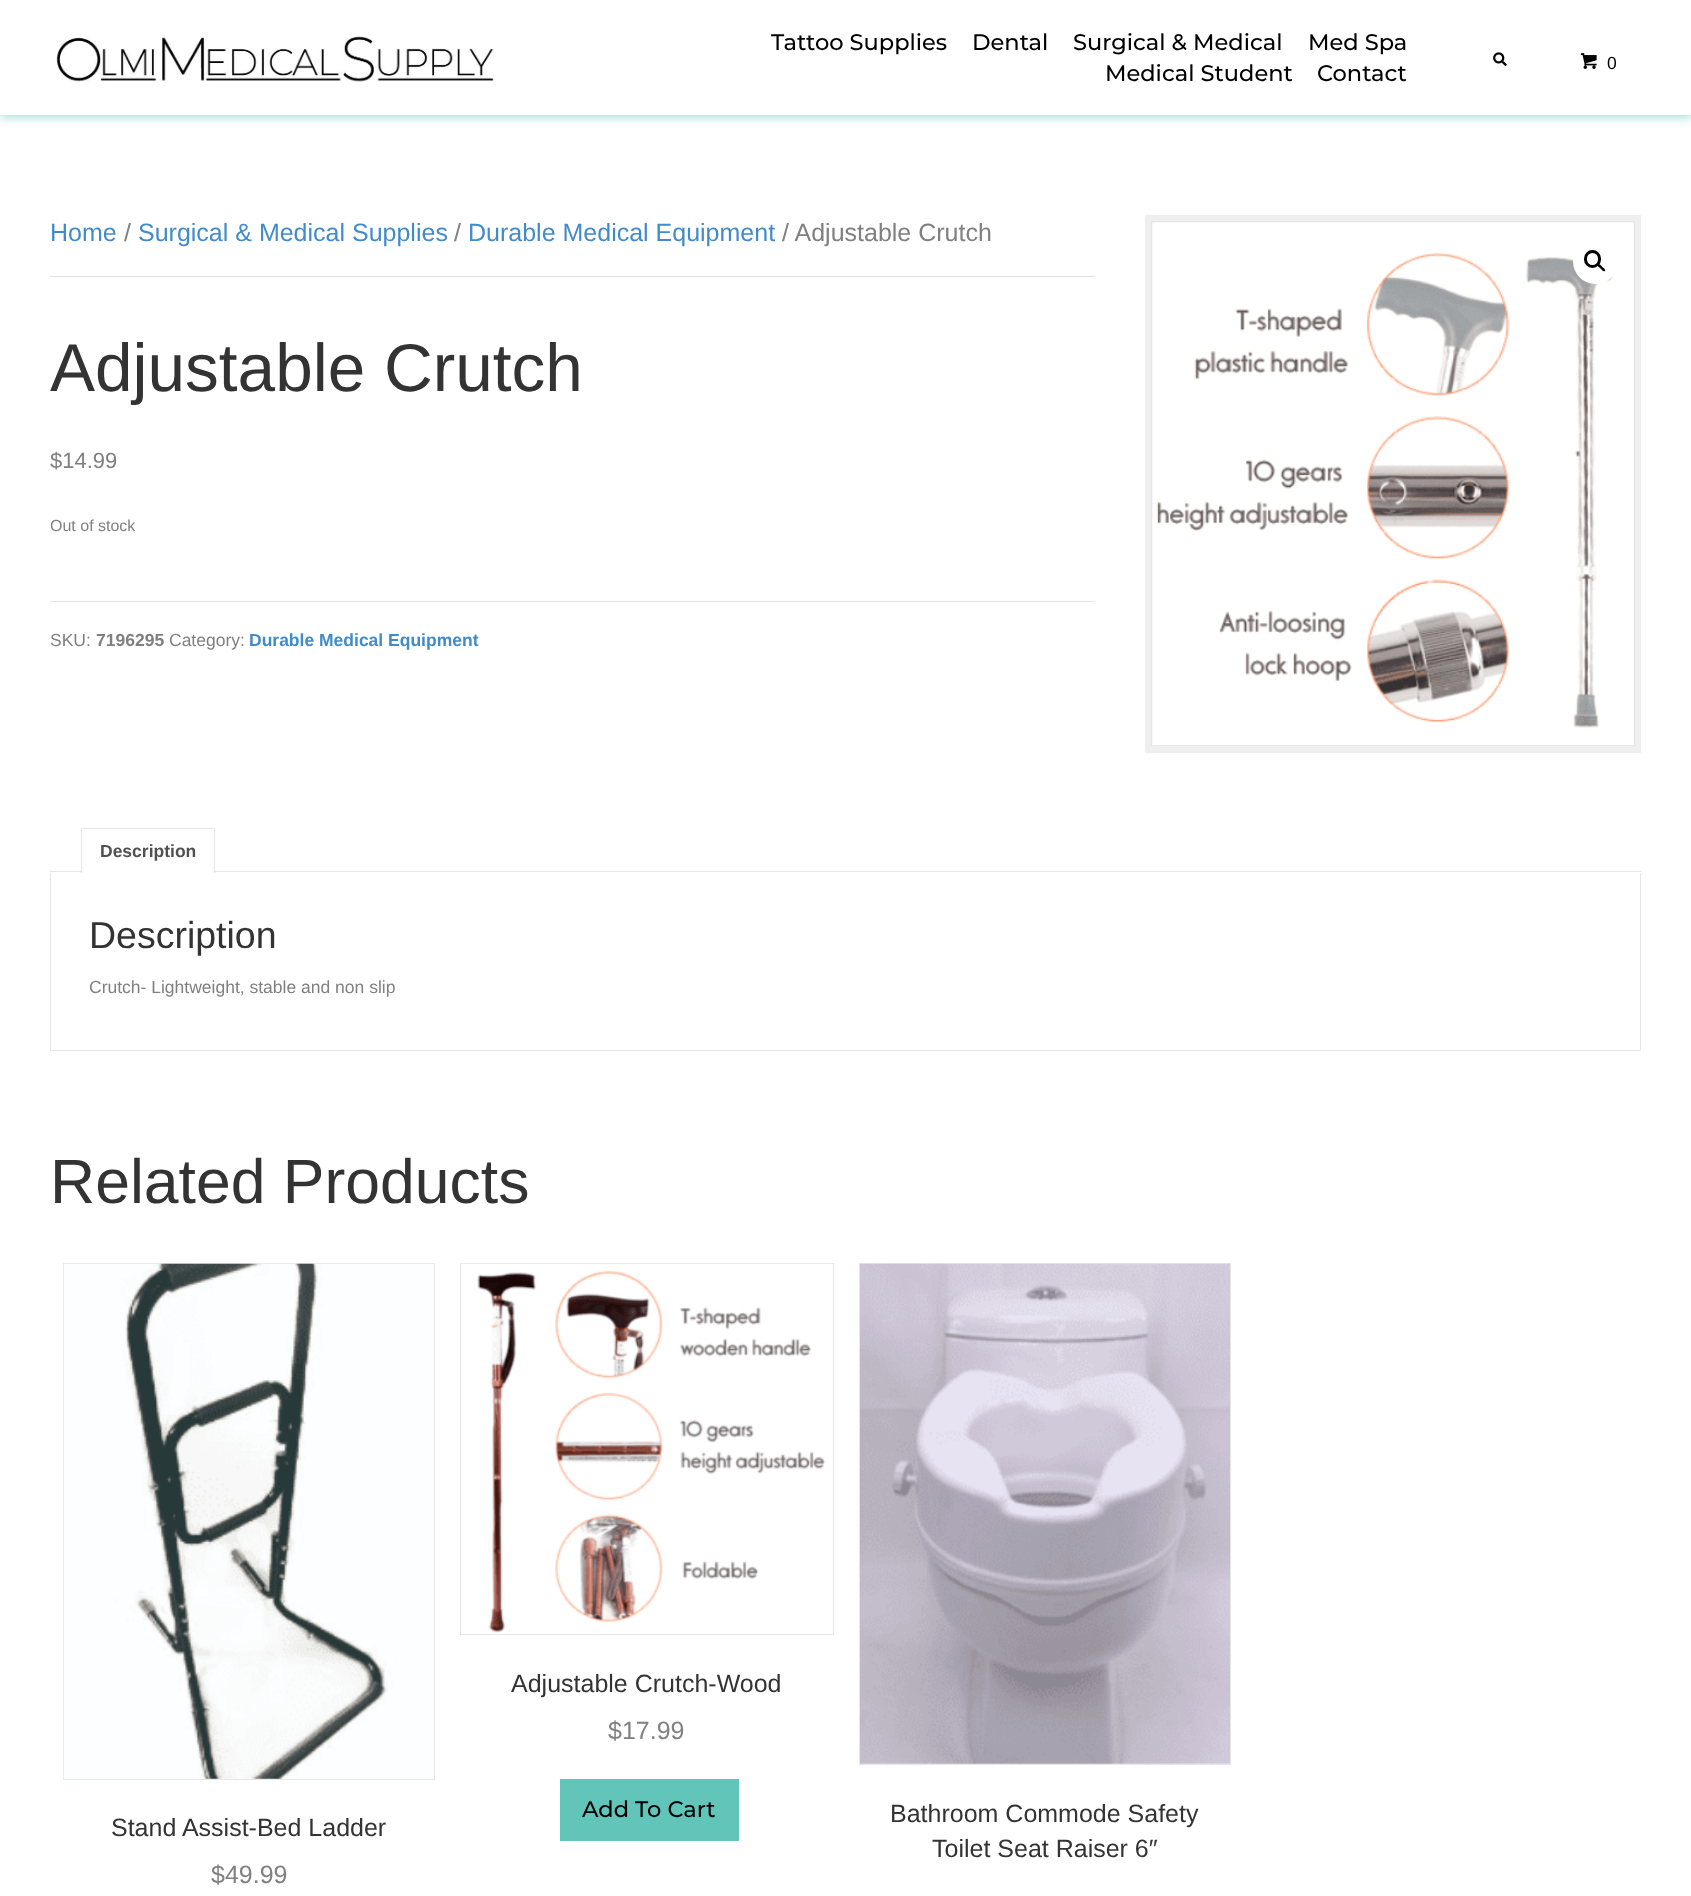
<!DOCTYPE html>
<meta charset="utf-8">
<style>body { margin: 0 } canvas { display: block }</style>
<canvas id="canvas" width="1691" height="1896"></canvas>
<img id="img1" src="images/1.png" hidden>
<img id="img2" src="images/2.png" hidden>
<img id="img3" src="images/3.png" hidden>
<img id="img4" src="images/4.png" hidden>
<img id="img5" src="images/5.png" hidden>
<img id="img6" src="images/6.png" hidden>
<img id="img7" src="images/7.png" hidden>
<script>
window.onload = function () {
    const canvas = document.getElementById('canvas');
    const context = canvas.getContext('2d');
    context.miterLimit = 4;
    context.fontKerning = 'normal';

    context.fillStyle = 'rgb(255, 255, 255)';
    context.fillRect(0, 0, 1691, 1896);
    context.fillStyle = 'rgba(98, 197, 185, 0.71)';
    context.filter = 'blur(6px)';
    context.beginPath();
    context.rect(-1, -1, 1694, 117);
    context.fill();
    context.filter = 'none';
    context.fillStyle = 'rgb(255, 255, 255)';
    context.fillRect(0, 0, 1691, 115);
    context.drawImage(document.getElementById('img1'), 56, 36, 438, 46);
    context.drawImage(document.getElementById('img2'), 1493, 52, 14, 14);
    context.drawImage(document.getElementById('img3'), 1580, 53, 17, 16);
    context.fillStyle = 'rgb(224, 224, 224)';
    context.fillRect(50, 276, 1045, 1);
    context.fillStyle = 'rgb(229, 229, 229)';
    context.fillRect(50, 601, 1045, 1);
    context.fillStyle = 'rgb(239, 239, 239)';
    context.fillRect(1145, 215, 496, 538);
    context.strokeStyle = 'rgb(230, 230, 230)';
    context.strokeRect(1151.5, 221.5, 483, 524);
    context.drawImage(document.getElementById('img4'), 1152, 222, 482, 523);
    context.fillStyle = 'rgb(255, 255, 255)';
    context.beginPath();
    context.arc(1595.5, 261.5, 22.5, 0, 2 * Math.PI);
    context.fill();
    context.beginPath();
    context.roundRect(1585.5, 251.5, 14, 15, 7);
    context.strokeStyle = 'rgb(0, 0, 0)';
    context.lineWidth = 3;
    context.stroke();
    context.fillStyle = 'rgb(0, 0, 0)';
    context.beginPath();
    context.moveTo(1597.5, 264);
    context.bezierCurveTo(1599, 262.5, 1601.5, 266, 1602, 266.5);
    context.bezierCurveTo(1603, 267.5, 1606, 269.5, 1605, 271);
    context.bezierCurveTo(1603.5, 272.5, 1601, 269, 1600.5, 268.5);
    context.bezierCurveTo(1599.5, 267.5, 1596.5, 265.5, 1597.5, 264);
    context.closePath();
    context.fill();
    context.fillStyle = 'rgb(230, 230, 230)';
    context.fillRect(50, 871, 1591, 1);
    context.fillStyle = 'rgb(255, 255, 255)';
    context.fillRect(82, 871, 132, 1);
    context.fillStyle = 'rgb(230, 230, 230)';
    context.fillRect(81, 828, 134, 1);
    context.fillRect(214, 828, 1, 45);
    context.fillRect(81, 828, 1, 45);
    context.fillRect(1640, 873, 1, 178);
    context.fillRect(50, 1050, 1591, 1);
    context.fillRect(50, 873, 1, 178);
    context.strokeStyle = 'rgb(230, 230, 230)';
    context.lineWidth = 1;
    context.strokeRect(460.5, 1263.5, 373, 371);
    context.drawImage(document.getElementById('img5'), 461, 1263, 371, 370);
    context.fillStyle = 'rgb(98, 197, 185)';
    context.fillRect(560, 1779, 179, 62);
    context.strokeRect(63.5, 1263.5, 371, 516);
    context.drawImage(document.getElementById('img6'), 63, 1263, 371, 516);
    context.strokeRect(859.5, 1263.5, 371, 501);
    context.drawImage(document.getElementById('img7'), 860, 1263, 370, 501);
    context.font = '100 22.5px Montserrat';
    context.fillStyle = 'rgb(0, 0, 0)';
    context.fillText('Tattoo Supplies', 771, 50);
    context.fillText('Dental', 972, 50);
    context.fillText('Surgical & Medical', 1073, 50);
    context.fillText('Med Spa', 1308, 50);
    context.fillText('Medical Student', 1105, 81);
    context.fillText('Contact', 1317, 81);
    context.font = '17.5px Liberation Sans';
    context.fillText('0', 1607, 69);
    context.font = '25px Liberation Sans';
    context.fillStyle = 'rgb(66, 139, 202)';
    context.fillText('Home', 50, 241);
    context.fillStyle = 'rgb(128, 128, 128)';
    context.fillText('/', 124, 241);
    context.fillStyle = 'rgb(66, 139, 202)';
    context.fillText('Surgical & Medical Supplies', 138, 241);
    context.fillStyle = 'rgb(128, 128, 128)';
    context.fillText('/', 454, 241);
    context.fillStyle = 'rgb(66, 139, 202)';
    context.fillText('Durable Medical Equipment', 468, 241);
    context.fillStyle = 'rgb(128, 128, 128)';
    context.fillText('/ Adjustable Crutch', 782, 241);
    context.font = '67.5px Liberation Sans';
    context.fillStyle = 'rgb(51, 51, 51)';
    context.fillText('Adjustable Crutch', 50, 391);
    context.font = '22px Liberation Sans';
    context.fillStyle = 'rgb(128, 128, 128)';
    context.fillText('$14.99', 50, 468);
    context.font = '16px Liberation Sans';
    context.fillText('Out of stock', 50, 531);
    context.font = '17.5px Liberation Sans';
    context.fillText('SKU:', 50, 646);
    context.font = 'bold 17.5px Liberation Sans';
    context.fillText('7196295', 96, 646);
    context.font = '17.5px Liberation Sans';
    context.fillText('Category:', 169, 646);
    context.font = 'bold 17.5px Liberation Sans';
    context.fillStyle = 'rgb(66, 139, 202)';
    context.fillText('Durable Medical Equipment', 249, 646);
    context.fillStyle = 'rgb(81, 81, 81)';
    context.fillText('Description', 100, 857);
    context.font = '37.5px Liberation Sans';
    context.fillStyle = 'rgb(51, 51, 51)';
    context.fillText('Description', 89, 948);
    context.font = '17.5px Liberation Sans';
    context.fillStyle = 'rgb(128, 128, 128)';
    context.fillText('Crutch- Lightweight, stable and non slip', 89, 993);
    context.font = '62.5px Liberation Sans';
    context.fillStyle = 'rgb(51, 51, 51)';
    context.fillText('Related Products', 50, 1203);
    context.font = '25px Liberation Sans';
    context.fillText('Adjustable Crutch-Wood', 511, 1692);
    context.fillStyle = 'rgb(128, 128, 128)';
    context.fillText('$17.99', 608, 1739);
    context.font = '100 22.5px Montserrat';
    context.fillStyle = 'rgb(0, 0, 0)';
    context.fillText('Add To Cart', 582, 1817);
    context.font = '25px Liberation Sans';
    context.fillStyle = 'rgb(51, 51, 51)';
    context.fillText('Stand Assist-Bed Ladder', 111, 1836);
    context.fillStyle = 'rgb(128, 128, 128)';
    context.fillText('$49.99', 211, 1883);
    context.fillStyle = 'rgb(51, 51, 51)';
    context.fillText('Bathroom Commode Safety', 890, 1822);
    context.fillText('Toilet Seat Raiser 6″', 932, 1857);
};
</script>
